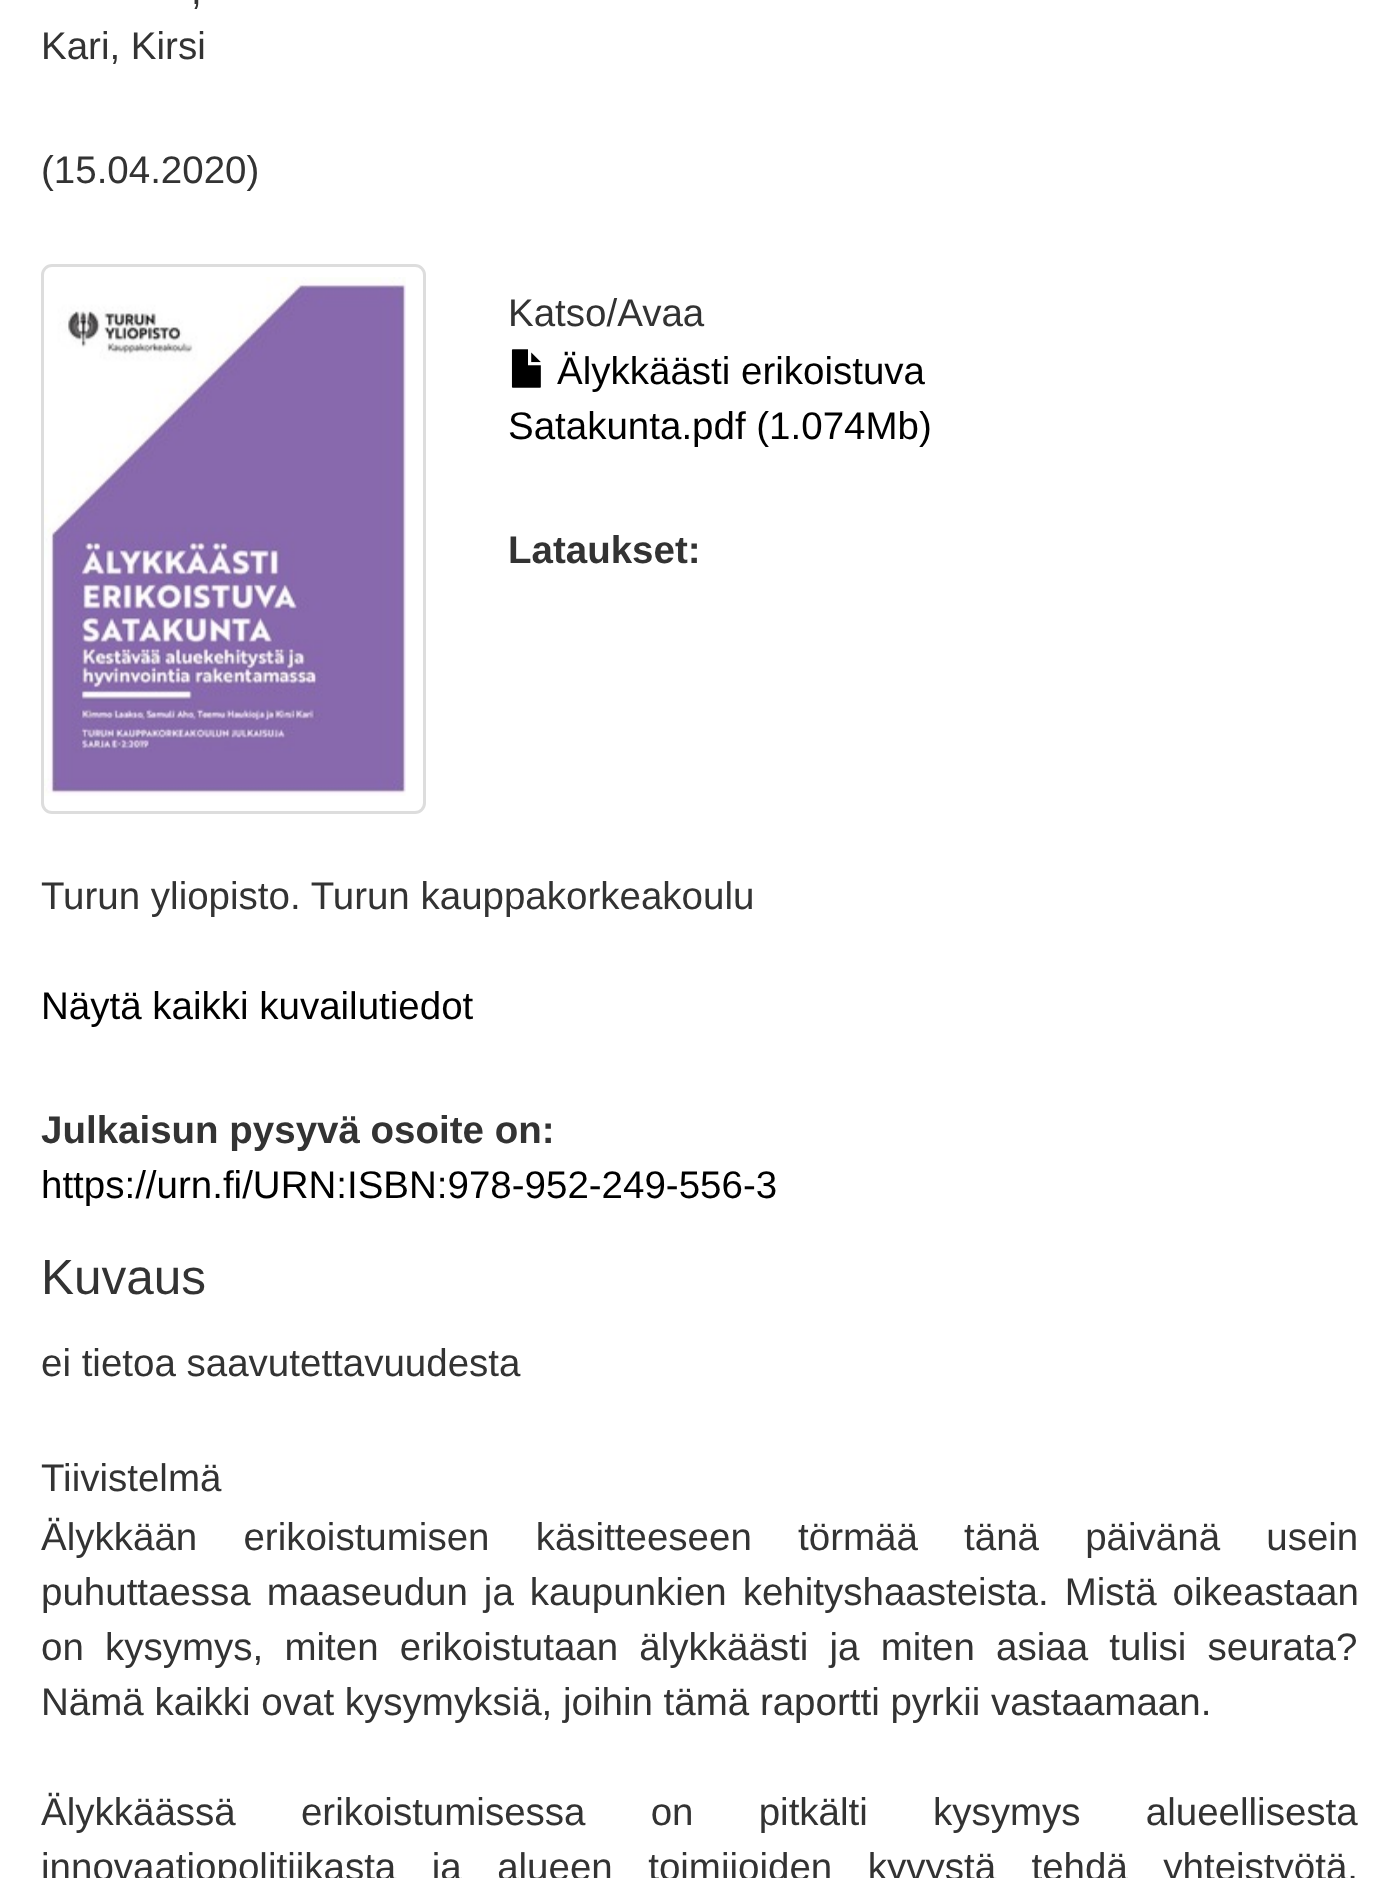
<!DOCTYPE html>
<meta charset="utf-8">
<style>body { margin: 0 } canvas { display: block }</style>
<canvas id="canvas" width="1399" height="1878"></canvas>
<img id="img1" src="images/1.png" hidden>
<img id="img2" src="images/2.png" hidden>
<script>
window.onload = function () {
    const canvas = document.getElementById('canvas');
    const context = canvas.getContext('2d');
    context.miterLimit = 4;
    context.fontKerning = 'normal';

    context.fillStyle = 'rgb(255, 255, 255)';
    context.fillRect(0, 0, 1399, 1878);
    context.beginPath();
    context.roundRect(42.5, 265.5, 382, 547, 9.5);
    context.strokeStyle = 'rgb(221, 221, 221)';
    context.lineWidth = 3;
    context.stroke();
    context.drawImage(document.getElementById('img1'), 44, 277, 362, 519);
    context.drawImage(document.getElementById('img2'), 511, 349, 30, 39);
    context.font = '38.5px Liberation Sans';
    context.fillStyle = 'rgb(51, 51, 51)';
    context.fillText(',', 191, 4);
    context.fillText('Kari, Kirsi', 41, 59);
    context.fillText('(15.04.2020)', 41, 183);
    context.fillText('Katso/Avaa', 508, 326);
    context.fillStyle = 'rgb(0, 0, 0)';
    context.fillText('Älykkäästi erikoistuva', 557, 384);
    context.fillText('Satakunta.pdf (1.074Mb)', 508, 439);
    context.font = 'bold 38.5px Liberation Sans';
    context.fillStyle = 'rgb(51, 51, 51)';
    context.fillText('Lataukset:', 508, 563);
    context.font = '38.5px Liberation Sans';
    context.fillText('Turun yliopisto. Turun kauppakorkeakoulu', 41, 909);
    context.fillStyle = 'rgb(0, 0, 0)';
    context.fillText('Näytä kaikki kuvailutiedot', 41, 1019);
    context.font = 'bold 38.5px Liberation Sans';
    context.fillStyle = 'rgb(51, 51, 51)';
    context.fillText('Julkaisun pysyvä osoite on:', 41, 1143);
    context.font = '38.5px Liberation Sans';
    context.fillStyle = 'rgb(0, 0, 0)';
    context.fillText('https://urn.fi/URN:ISBN:978-952-249-556-3', 41, 1198);
    context.font = '49.5px Liberation Sans';
    context.fillStyle = 'rgb(51, 51, 51)';
    context.fillText('Kuvaus', 41, 1294);
    context.font = '38.5px Liberation Sans';
    context.fillText('ei tietoa saavutettavuudesta', 41, 1376);
    context.fillText('Tiivistelmä', 41, 1491);
    context.wordSpacing = '35.5px';
    context.fillText('Älykkään erikoistumisen käsitteeseen törmää tänä päivänä usein', 41, 1550);
    context.wordSpacing = '5.25px';
    context.fillText('puhuttaessa maaseudun ja kaupunkien kehityshaasteista. Mistä oikeastaan', 41, 1605);
    context.wordSpacing = '10.5px';
    context.fillText('on kysymys, miten erikoistutaan älykkäästi ja miten asiaa tulisi seurata?', 41, 1660);
    context.wordSpacing = '0px';
    context.fillText('Nämä kaikki ovat kysymyksiä, joihin tämä raportti pyrkii vastaamaan.', 41, 1715);
    context.wordSpacing = '54.5px';
    context.fillText('Älykkäässä erikoistumisessa on pitkälti kysymys alueellisesta', 41, 1825);
    context.wordSpacing = '24.75px';
    context.fillText('innovaatiopolitiikasta ja alueen toimijoiden kyvystä tehdä yhteistyötä.', 41, 1880);
};
</script>
